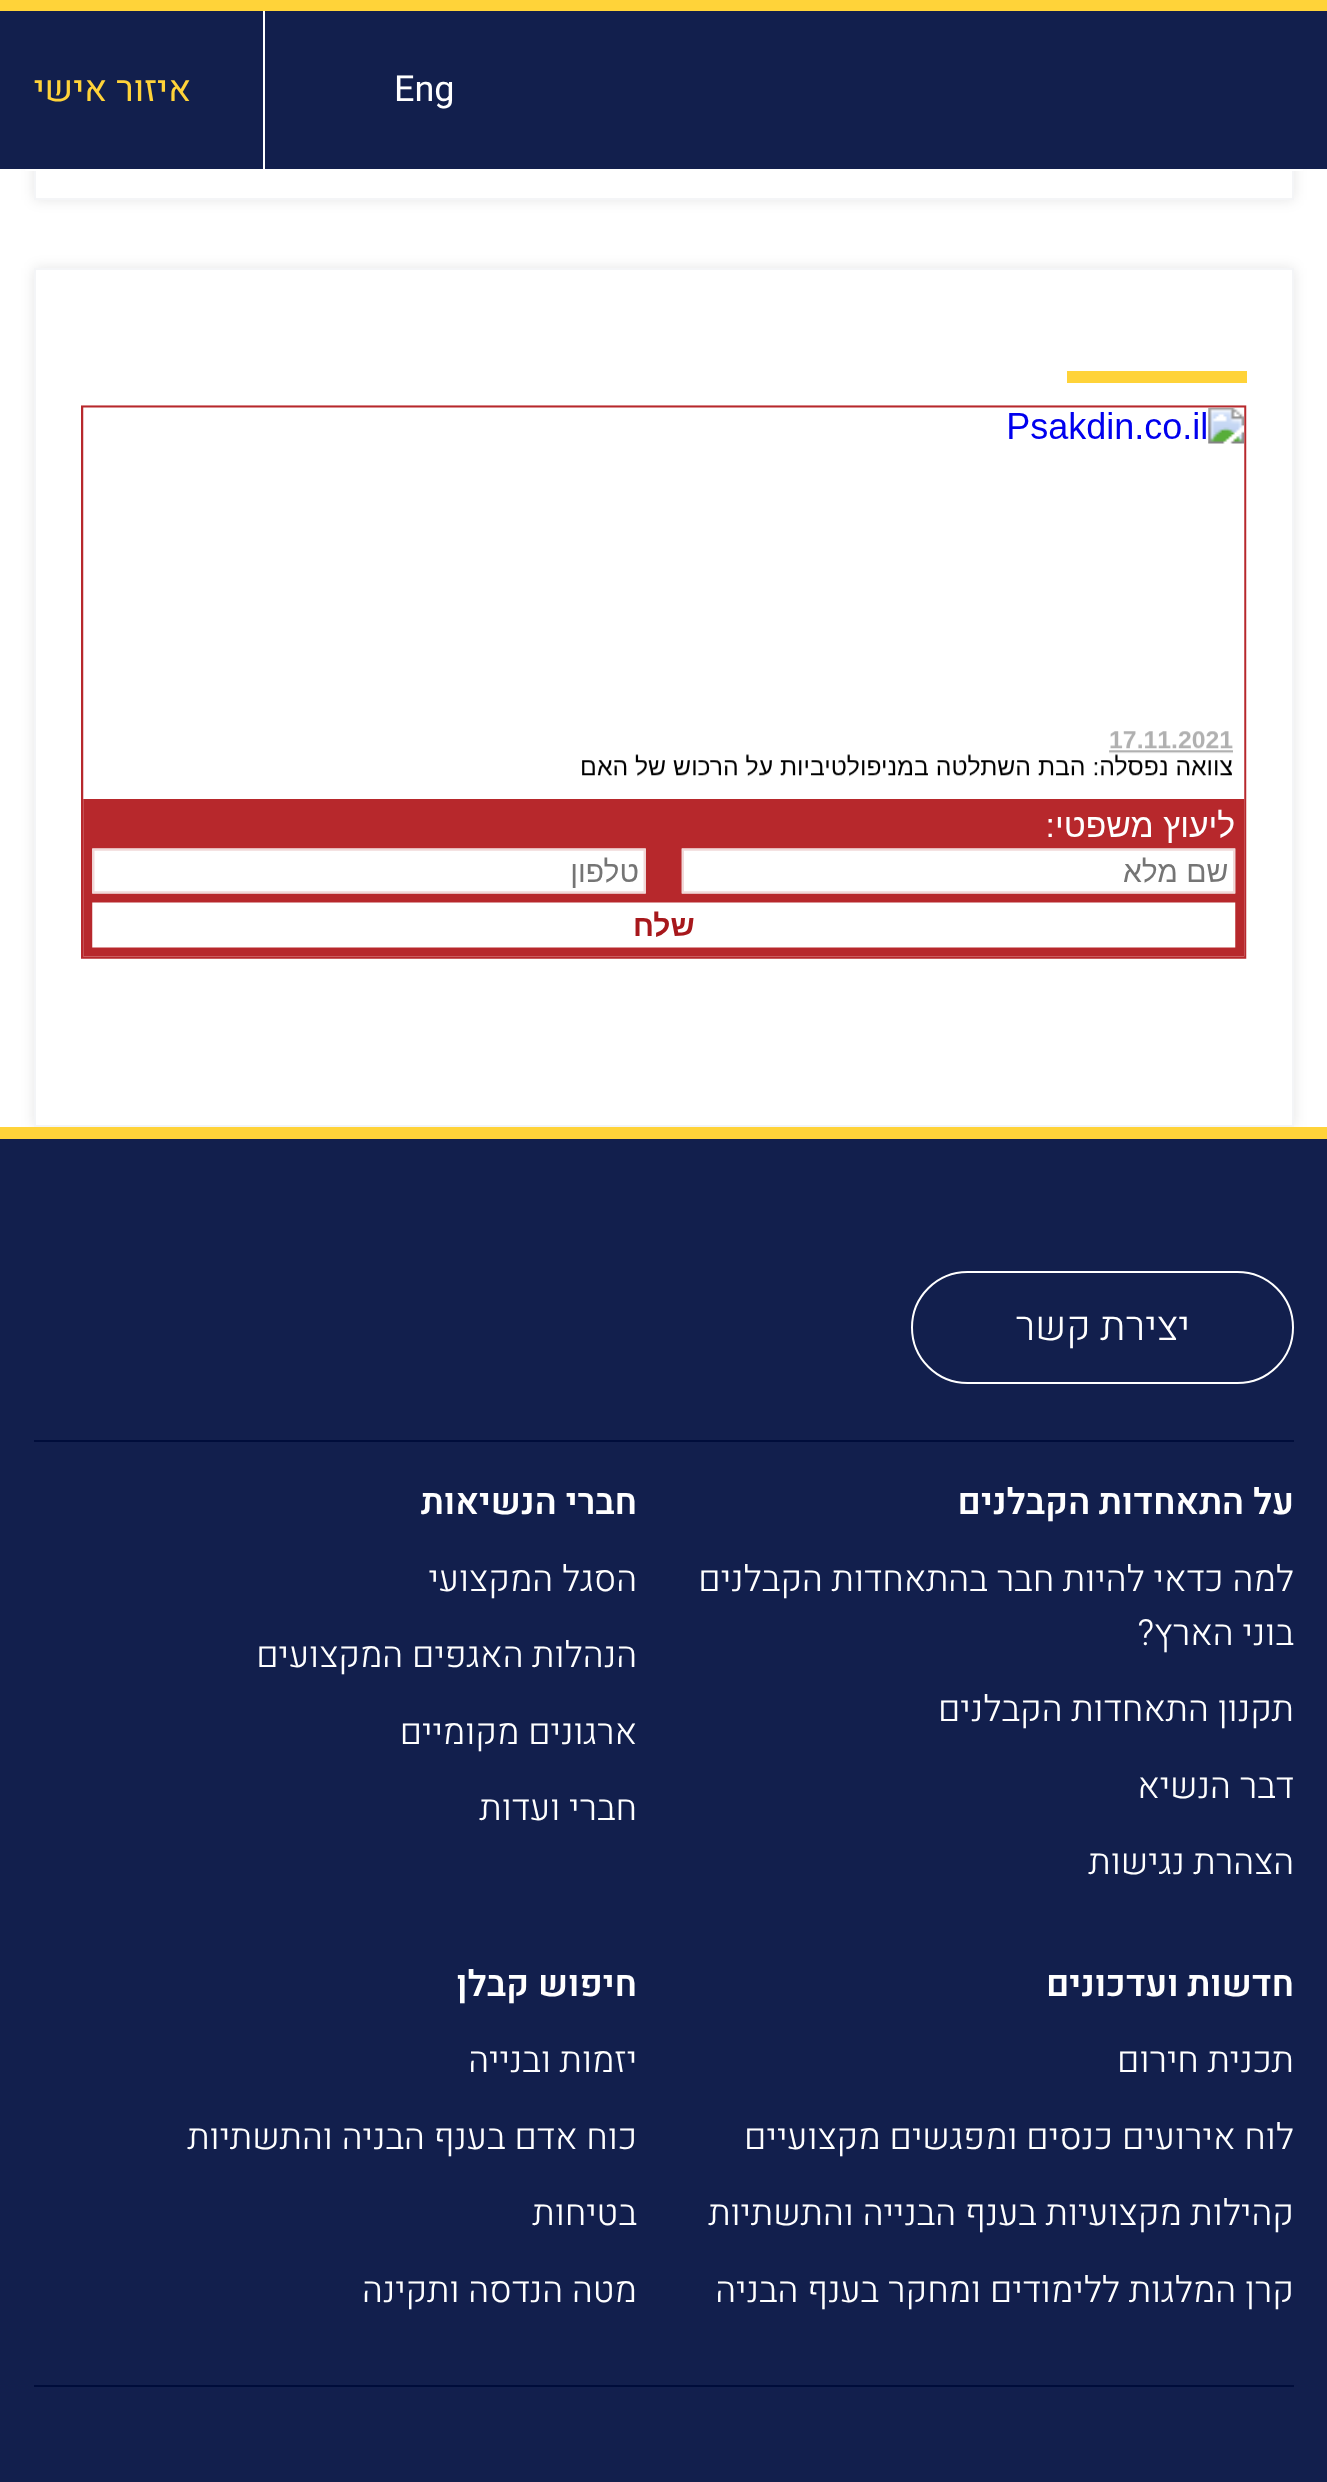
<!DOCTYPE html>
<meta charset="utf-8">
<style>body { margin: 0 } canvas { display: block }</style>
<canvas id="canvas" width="1327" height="2482"></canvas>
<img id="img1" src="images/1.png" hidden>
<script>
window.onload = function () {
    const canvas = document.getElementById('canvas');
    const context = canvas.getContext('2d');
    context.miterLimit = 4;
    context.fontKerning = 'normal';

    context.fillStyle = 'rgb(255, 255, 255)';
    context.fillRect(0, 0, 1327, 2482);
    context.fillStyle = 'rgba(0, 0, 0, 0.1)';
    context.filter = 'blur(7px)';
    context.beginPath();
    context.rect(34, -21, 1260, 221);
    context.fill();
    context.filter = 'none';
    context.fillStyle = 'rgb(255, 255, 255)';
    context.fillRect(36, 171, 1256, 27);
    context.strokeStyle = 'rgb(244, 245, 247)';
    context.lineWidth = 2;
    context.strokeRect(35, -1, 1258, 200);
    context.fillStyle = 'rgba(0, 0, 0, 0.1)';
    context.filter = 'blur(7px)';
    context.beginPath();
    context.rect(34, 268, 1260, 859);
    context.fill();
    context.filter = 'none';
    context.fillStyle = 'rgb(255, 255, 255)';
    context.beginPath();
    context.rect(35, 269, 1258, 857);
    context.fill();
    context.stroke();
    context.fillStyle = 'rgb(255, 211, 57)';
    context.fillRect(1067, 371, 180, 12);
    context.drawImage(document.getElementById('img1'), 81, 405, 1166, 554);
    context.fillStyle = 'rgb(18, 31, 77)';
    context.fillRect(0, 11, 1327, 158);
    context.fillStyle = 'rgb(255, 211, 57)';
    context.fillRect(0, 0, 1327, 11);
    context.fillStyle = 'rgb(255, 255, 255)';
    context.fillRect(25, 169, 1278, 2);
    context.fillRect(263, 11, 2, 158);
    context.fillStyle = 'rgb(18, 31, 77)';
    context.fillRect(0, 1139, 1327, 1343);
    context.fillStyle = 'rgb(255, 211, 57)';
    context.fillRect(0, 1127, 1327, 12);
    context.fillStyle = 'rgb(0, 13, 59)';
    context.fillRect(34, 1440, 1260, 2);
    context.beginPath();
    context.roundRect(912, 1272, 381, 111, 55.5);
    context.strokeStyle = 'rgb(255, 255, 255)';
    context.stroke();
    context.fillRect(34, 2385, 1260, 2);
    context.font = '36px Heebo';
    context.fillStyle = 'rgb(255, 255, 255)';
    context.fillText('Eng', 394, 101);
    context.direction = 'rtl';
    context.fillStyle = 'rgb(255, 211, 57)';
    context.fillText('איזור אישי', 191, 101);
    context.font = '300 40.5px Heebo';
    context.fillStyle = 'rgb(255, 255, 255)';
    context.fillText('יצירת קשר', 1190, 1340);
    context.font = '600 36px Heebo';
    context.fillText('על התאחדות הקבלנים', 1294, 1514);
    context.font = '300 36px Heebo';
    context.fillText('למה כדאי להיות חבר בהתאחדות הקבלנים', 1294, 1591);
    context.fillText('בוני הארץ?', 1294, 1645);
    context.fillText('תקנון התאחדות הקבלנים', 1294, 1721);
    context.fillText('דבר הנשיא', 1294, 1798);
    context.fillText('הצהרת נגישות', 1294, 1874);
    context.font = '600 36px Heebo';
    context.fillText('חברי הנשיאות', 637, 1514);
    context.font = '300 36px Heebo';
    context.fillText('הסגל המקצועי', 637, 1591);
    context.fillText('הנהלות האגפים המקצועים', 637, 1667);
    context.fillText('ארגונים מקומיים', 637, 1744);
    context.fillText('חברי ועדות', 637, 1820);
    context.font = '600 36px Heebo';
    context.fillText('חדשות ועדכונים', 1294, 1996);
    context.font = '300 36px Heebo';
    context.fillText('תכנית חירום', 1294, 2072);
    context.fillText('לוח אירועים כנסים ומפגשים מקצועיים', 1294, 2149);
    context.fillText('קהילות מקצועיות בענף הבנייה והתשתיות', 1294, 2225);
    context.fillText('קרן המלגות ללימודים ומחקר בענף הבניה', 1294, 2302);
    context.font = '600 36px Heebo';
    context.fillText('חיפוש קבלן', 637, 1996);
    context.font = '300 36px Heebo';
    context.fillText('יזמות ובנייה', 637, 2072);
    context.fillText('כוח אדם בענף הבניה והתשתיות', 637, 2149);
    context.fillText('בטיחות', 637, 2225);
    context.fillText('מטה הנדסה ותקינה', 637, 2302);
};
</script>
